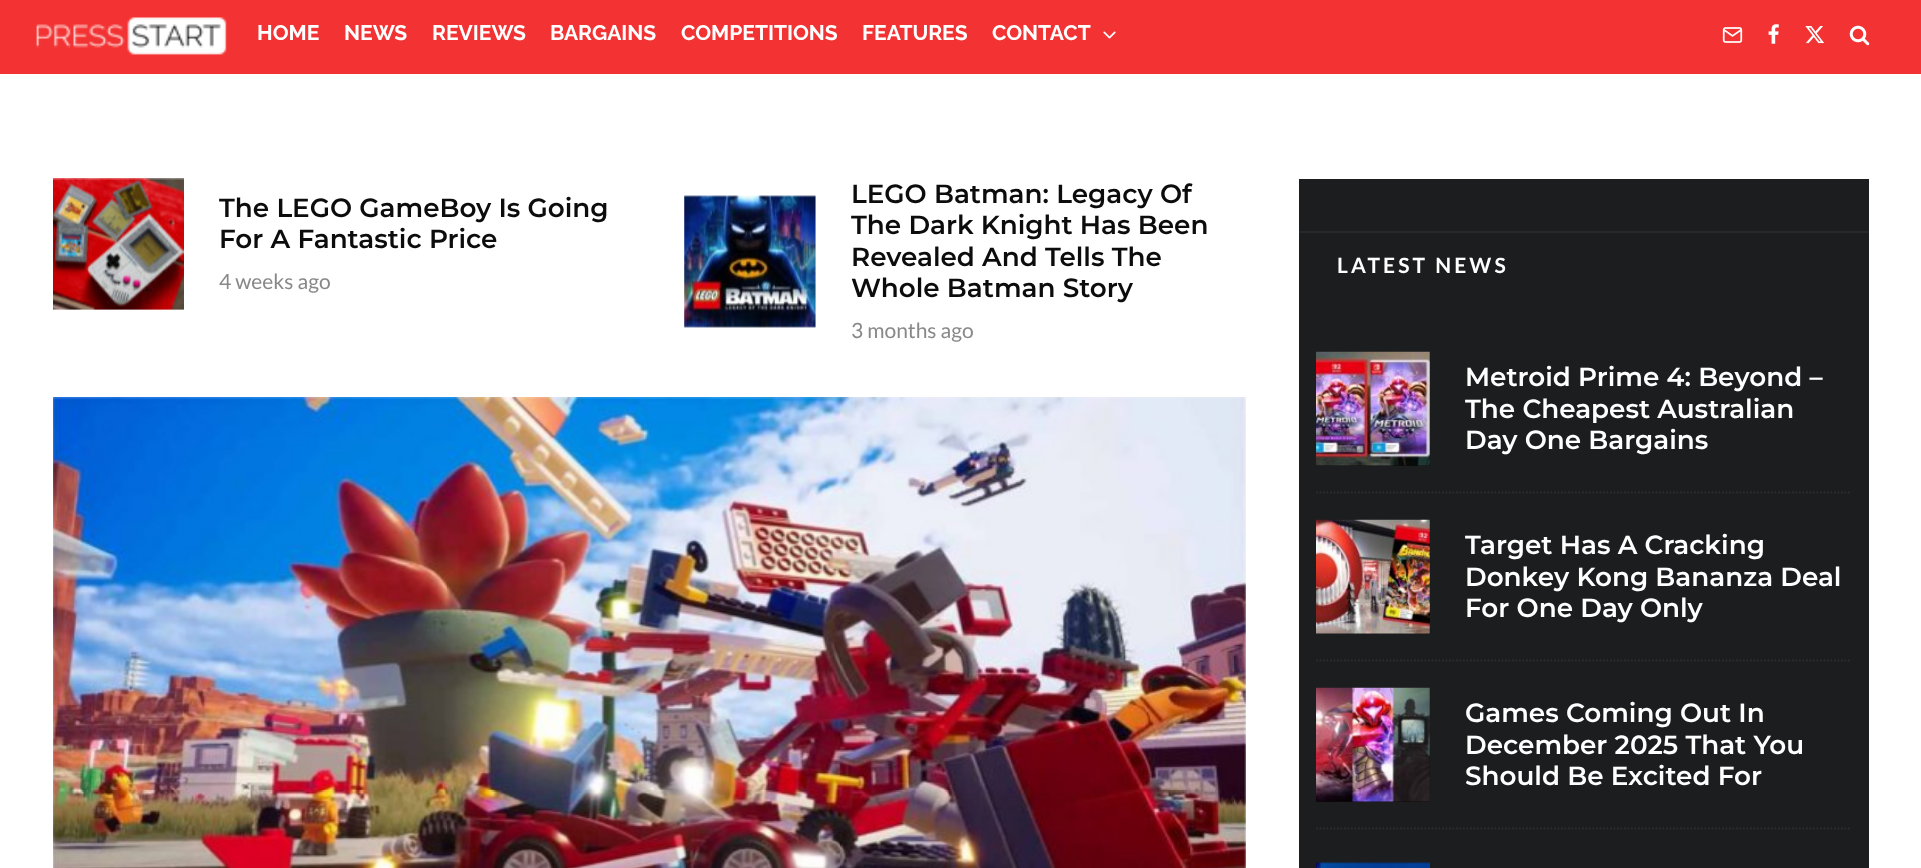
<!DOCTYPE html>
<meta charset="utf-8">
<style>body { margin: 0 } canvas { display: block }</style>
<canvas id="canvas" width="1921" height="868"></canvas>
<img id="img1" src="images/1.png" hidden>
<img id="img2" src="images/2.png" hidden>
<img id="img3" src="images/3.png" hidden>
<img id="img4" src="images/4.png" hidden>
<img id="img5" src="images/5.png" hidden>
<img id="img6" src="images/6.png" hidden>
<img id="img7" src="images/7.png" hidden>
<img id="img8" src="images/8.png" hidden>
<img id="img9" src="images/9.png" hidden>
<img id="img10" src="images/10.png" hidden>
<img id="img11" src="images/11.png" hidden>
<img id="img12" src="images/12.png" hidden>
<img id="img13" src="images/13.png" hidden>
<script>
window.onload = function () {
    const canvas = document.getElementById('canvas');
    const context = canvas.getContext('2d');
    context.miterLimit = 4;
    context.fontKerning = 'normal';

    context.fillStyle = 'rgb(255, 255, 255)';
    context.fillRect(0, 0, 1921, 868);
    context.fillStyle = 'rgb(243, 51, 51)';
    context.fillRect(0, 0, 1921, 74);
    context.drawImage(document.getElementById('img1'), 36, 17, 191, 38);
    context.drawImage(document.getElementById('img2'), 1103, 31, 13, 8);
    context.drawImage(document.getElementById('img3'), 1722, 27, 21, 16);
    context.drawImage(document.getElementById('img4'), 1768, 24, 11, 20);
    context.drawImage(document.getElementById('img5'), 1805, 26, 19, 18);
    context.drawImage(document.getElementById('img6'), 1849, 25, 21, 21);
    context.fillStyle = 'rgb(238, 238, 238)';
    context.fillRect(53, 179, 131, 131);
    context.drawImage(document.getElementById('img7'), 53, 178, 131, 132);
    context.fillRect(684, 196, 132, 131);
    context.drawImage(document.getElementById('img8'), 684, 195, 132, 133);
    context.drawImage(document.getElementById('img9'), 53, 397, 1193, 471);
    context.fillStyle = 'rgb(28, 29, 30)';
    context.fillRect(1299, 179, 570, 689);
    context.fillStyle = 'rgb(40, 40, 40)';
    context.fillRect(1299, 231, 570, 2);
    context.beginPath();
    context.moveTo(1316, 492.5);
    context.lineTo(1851.5, 492.5);
    context.strokeStyle = 'rgb(45, 45, 45)';
    context.lineWidth = 1.8;
    context.setLineDash([1.75, 1.75]);
    context.stroke();
    context.fillStyle = 'rgb(12, 12, 12)';
    context.fillRect(1316, 352, 114, 114);
    context.drawImage(document.getElementById('img10'), 1316, 351, 114, 115);
    context.beginPath();
    context.moveTo(1316, 660.5);
    context.lineTo(1851.5, 660.5);
    context.stroke();
    context.fillRect(1316, 520, 114, 114);
    context.drawImage(document.getElementById('img11'), 1316, 519, 114, 115);
    context.beginPath();
    context.moveTo(1316, 828.5);
    context.lineTo(1851.5, 828.5);
    context.stroke();
    context.fillRect(1316, 688, 114, 114);
    context.drawImage(document.getElementById('img12'), 1316, 687, 114, 115);
    context.drawImage(document.getElementById('img13'), 1316, 862, 114, 6);
    context.font = '100 21px Raleway';
    context.fillStyle = 'rgb(255, 255, 255)';
    context.fillText('HOME', 257, 40);
    context.fillText('NEWS', 344, 40);
    context.fillText('REVIEWS', 432, 40);
    context.fillText('BARGAINS', 550, 40);
    context.fillText('COMPETITIONS', 681, 40);
    context.fillText('FEATURES', 862, 40);
    context.fillText('CONTACT', 992, 40);
    context.font = '600 26.25px Montserrat';
    context.fillStyle = 'rgb(12, 12, 12)';
    context.fillText('The LEGO GameBoy Is Going', 219, 217);
    context.fillText('For A Fantastic Price', 219, 248);
    context.font = '21px Lato';
    context.fillStyle = 'rgb(136, 136, 136)';
    context.fillText('4 weeks ago', 219, 289);
    context.font = '600 26.25px Montserrat';
    context.fillStyle = 'rgb(12, 12, 12)';
    context.fillText('LEGO Batman: Legacy Of', 851, 203);
    context.fillText('The Dark Knight Has Been', 851, 234);
    context.fillText('Revealed And Tells The', 851, 266);
    context.fillText('Whole Batman Story', 851, 297);
    context.font = '21px Lato';
    context.fillStyle = 'rgb(136, 136, 136)';
    context.fillText('3 months ago', 851, 338);
    context.letterSpacing = '3.1px';
    context.font = 'bold 21px Lato';
    context.fillStyle = 'rgb(255, 255, 255)';
    context.fillText('LATEST NEWS', 1337, 273);
    context.letterSpacing = '0px';
    context.font = '600 26.25px Montserrat';
    context.fillText('Metroid Prime 4: Beyond –', 1465, 386);
    context.fillText('The Cheapest Australian', 1465, 418);
    context.fillText('Day One Bargains', 1465, 449);
    context.fillText('Target Has A Cracking', 1465, 554);
    context.fillText('Donkey Kong Bananza Deal', 1465, 586);
    context.fillText('For One Day Only', 1465, 617);
    context.fillText('Games Coming Out In', 1465, 722);
    context.fillText('December 2025 That You', 1465, 754);
    context.fillText('Should Be Excited For', 1465, 785);
};
</script>
